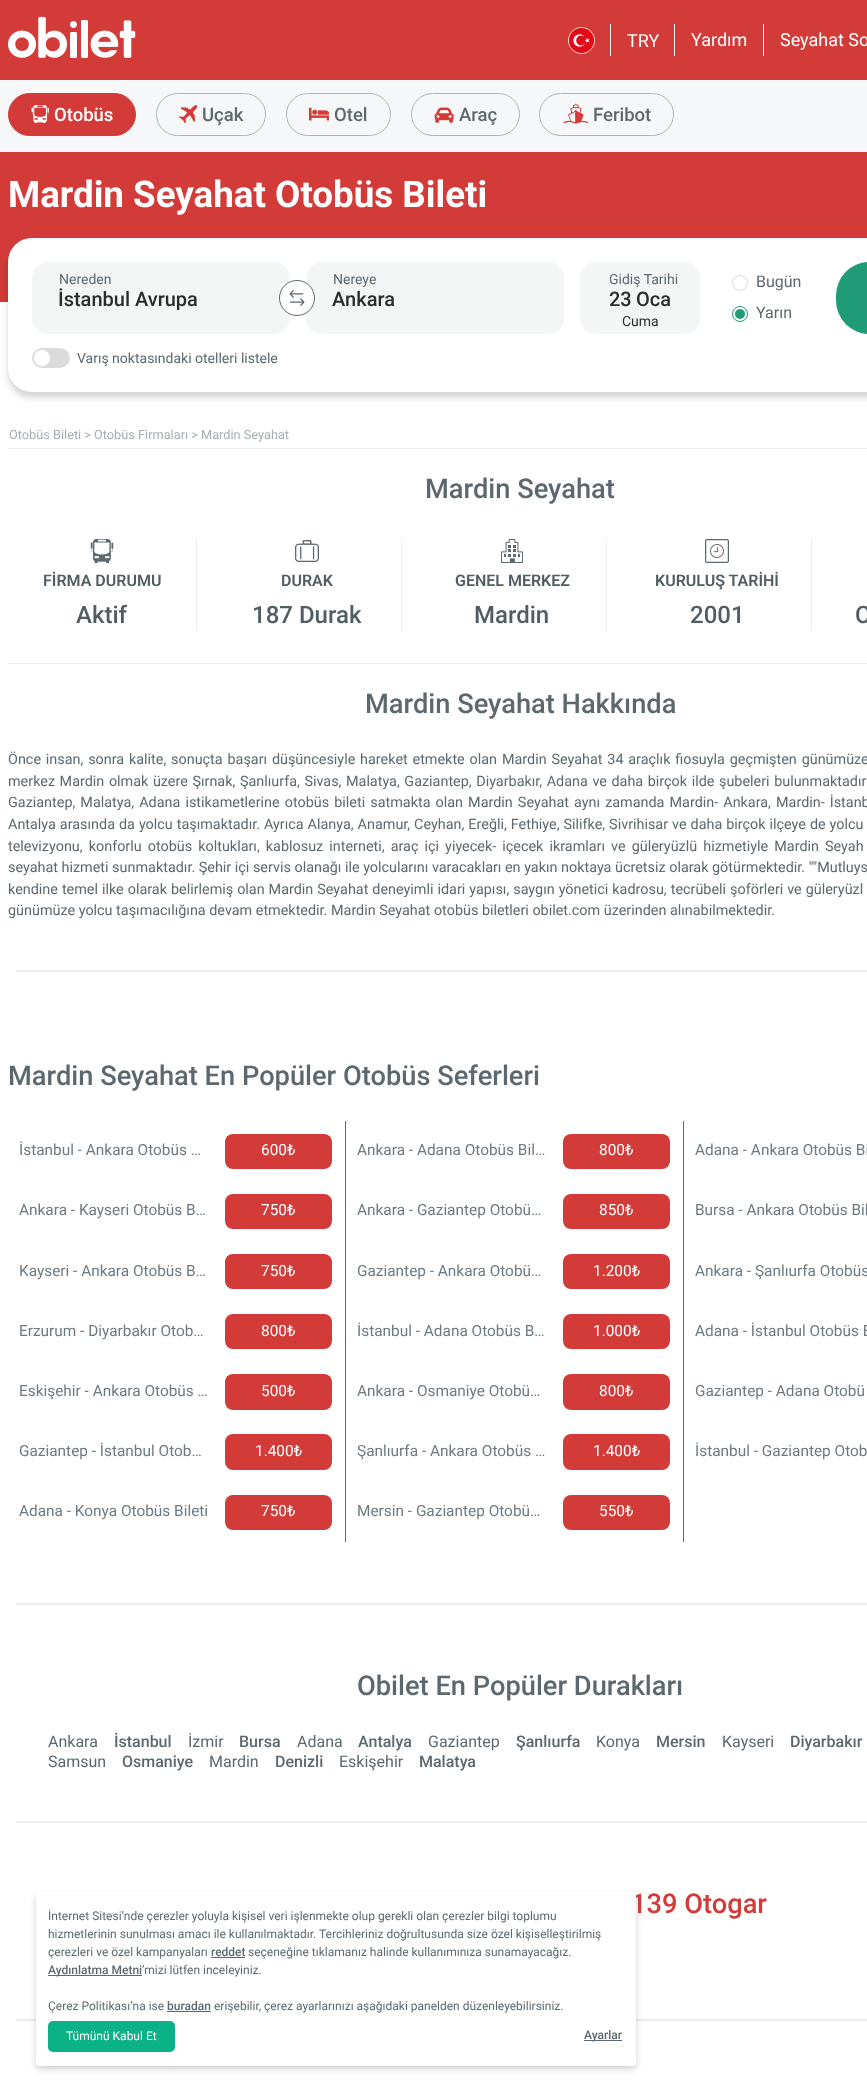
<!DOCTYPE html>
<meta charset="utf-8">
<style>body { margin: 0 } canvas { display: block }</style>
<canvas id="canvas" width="867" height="2090"></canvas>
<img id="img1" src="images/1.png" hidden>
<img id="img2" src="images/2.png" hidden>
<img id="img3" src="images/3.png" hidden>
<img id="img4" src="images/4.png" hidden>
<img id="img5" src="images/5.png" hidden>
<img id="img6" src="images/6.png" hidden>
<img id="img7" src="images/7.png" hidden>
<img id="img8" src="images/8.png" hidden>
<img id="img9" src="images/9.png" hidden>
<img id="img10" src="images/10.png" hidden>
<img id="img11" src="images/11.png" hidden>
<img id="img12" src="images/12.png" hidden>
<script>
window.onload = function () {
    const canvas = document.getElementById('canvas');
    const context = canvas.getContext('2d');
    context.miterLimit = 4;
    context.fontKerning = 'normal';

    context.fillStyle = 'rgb(255, 255, 255)';
    context.fillRect(0, 0, 867, 2090);
    context.fillStyle = 'rgb(210, 59, 56)';
    context.fillRect(0, 0, 867, 80);
    context.drawImage(document.getElementById('img1'), 8, 16, 128, 42);
    context.beginPath();
    context.arc(581.5, 40.5, 13, 0, 2 * Math.PI);
    context.strokeStyle = 'rgb(255, 255, 255)';
    context.stroke();
    context.drawImage(document.getElementById('img2'), 569, 28, 25, 25);
    context.fillStyle = 'rgb(255, 255, 255)';
    context.fillRect(610, 24, 1, 32);
    context.fillRect(674, 24, 1, 32);
    context.fillRect(763, 24, 1, 32);
    context.fillStyle = 'rgb(246, 247, 248)';
    context.fillRect(0, 80, 867, 72);
    context.fillStyle = 'rgb(210, 59, 56)';
    context.beginPath();
    context.roundRect(8.5, 93.5, 127, 42, 21);
    context.fill();
    context.strokeStyle = 'rgb(210, 59, 56)';
    context.stroke();
    context.drawImage(document.getElementById('img3'), 31, 105, 18, 18);
    context.beginPath();
    context.roundRect(156.5, 93.5, 109, 42, 21);
    context.strokeStyle = 'rgb(179, 179, 178)';
    context.stroke();
    context.drawImage(document.getElementById('img4'), 179, 105, 18, 18);
    context.beginPath();
    context.roundRect(286.5, 93.5, 104, 42, 21);
    context.stroke();
    context.drawImage(document.getElementById('img5'), 309, 107, 20, 14);
    context.beginPath();
    context.roundRect(411.5, 93.5, 108, 42, 21);
    context.stroke();
    context.drawImage(document.getElementById('img6'), 434, 107, 20, 16);
    context.beginPath();
    context.roundRect(539.5, 93.5, 134, 42, 21);
    context.stroke();
    context.drawImage(document.getElementById('img7'), 563, 102, 25, 22);
    context.fillRect(0, 152, 867, 150);
    context.fillStyle = 'rgba(0, 0, 0, 0.16)';
    context.filter = 'blur(3px)';
    context.beginPath();
    context.roundRect(8, 244, 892, 154, 24);
    context.fill();
    context.filter = 'none';
    context.fillStyle = 'rgb(255, 255, 255)';
    context.beginPath();
    context.roundRect(8, 238, 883, 154, 24);
    context.fill();
    context.fillStyle = 'rgb(244, 245, 245)';
    context.beginPath();
    context.roundRect(32, 262, 258, 72, 16);
    context.fill();
    context.beginPath();
    context.roundRect(306, 262, 258, 72, 16);
    context.fill();
    context.fillStyle = 'rgb(255, 255, 255)';
    context.beginPath();
    context.arc(297, 298, 17.5, 0, 2 * Math.PI);
    context.fill();
    context.strokeStyle = 'rgb(93, 104, 110)';
    context.stroke();
    context.drawImage(document.getElementById('img8'), 289, 290, 16, 16);
    context.fillStyle = 'rgb(244, 245, 245)';
    context.beginPath();
    context.roundRect(580, 262, 120, 72, 16);
    context.fill();
    context.beginPath();
    context.arc(740, 283, 7.5, 0, 2 * Math.PI);
    context.strokeStyle = 'rgb(221, 221, 221)';
    context.stroke();
    context.beginPath();
    context.arc(740, 314, 7.5, 0, 2 * Math.PI);
    context.strokeStyle = 'rgb(31, 155, 120)';
    context.stroke();
    context.fillStyle = 'rgb(31, 155, 120)';
    context.beginPath();
    context.arc(740, 314, 5, 0, 2 * Math.PI);
    context.fill();
    context.beginPath();
    context.roundRect(836, 262, 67, 72, 36);
    context.fill();
    context.fillStyle = 'rgb(219, 219, 219)';
    context.beginPath();
    context.roundRect(32, 348, 38, 20, 10);
    context.fill();
    context.fillStyle = 'rgb(255, 255, 255)';
    context.beginPath();
    context.arc(42, 358, 8, 0, 2 * Math.PI);
    context.fill();
    context.fillStyle = 'rgb(237, 237, 237)';
    context.fillRect(8, 448, 859, 1);
    context.fillRect(8, 663, 859, 1);
    context.fillRect(196, 539, 1, 92);
    context.drawImage(document.getElementById('img9'), 90, 539, 24, 24);
    context.fillRect(401, 539, 1, 92);
    context.drawImage(document.getElementById('img10'), 295, 540, 24, 22);
    context.fillRect(606, 539, 1, 92);
    context.drawImage(document.getElementById('img11'), 501, 539, 22, 24);
    context.fillRect(811, 539, 1, 92);
    context.drawImage(document.getElementById('img12'), 705, 539, 24, 24);
    context.fillRect(16, 970, 851, 2);
    context.fillStyle = 'rgb(210, 59, 56)';
    context.fillRect(345, 1121, 1, 421);
    context.beginPath();
    context.roundRect(225, 1134, 107, 35, 8);
    context.fill();
    context.fillRect(683, 1121, 1, 421);
    context.beginPath();
    context.roundRect(563, 1134, 107, 35, 8);
    context.fill();
    context.beginPath();
    context.roundRect(225, 1194, 107, 35, 8);
    context.fill();
    context.beginPath();
    context.roundRect(563, 1194, 107, 35, 8);
    context.fill();
    context.beginPath();
    context.roundRect(225, 1254, 107, 35, 8);
    context.fill();
    context.beginPath();
    context.roundRect(563, 1254, 107, 35, 8);
    context.fill();
    context.beginPath();
    context.roundRect(225, 1314, 107, 35, 8);
    context.fill();
    context.beginPath();
    context.roundRect(563, 1314, 107, 35, 8);
    context.fill();
    context.beginPath();
    context.roundRect(225, 1374, 107, 36, 8);
    context.fill();
    context.beginPath();
    context.roundRect(563, 1374, 107, 36, 8);
    context.fill();
    context.beginPath();
    context.roundRect(225, 1434, 107, 36, 8);
    context.fill();
    context.beginPath();
    context.roundRect(563, 1434, 107, 36, 8);
    context.fill();
    context.beginPath();
    context.roundRect(225, 1495, 107, 35, 8);
    context.fill();
    context.beginPath();
    context.roundRect(563, 1495, 107, 35, 8);
    context.fill();
    context.fillStyle = 'rgb(237, 237, 237)';
    context.fillRect(16, 1603, 851, 2);
    context.fillRect(16, 1821, 851, 2);
    context.fillRect(16, 2019, 851, 2);
    context.fillStyle = 'rgba(60, 68, 72, 0.25)';
    context.filter = 'blur(3px)';
    context.beginPath();
    context.roundRect(36, 1895, 600, 174, 4);
    context.fill();
    context.filter = 'none';
    context.font = '18px Roboto';
    context.fillStyle = 'rgb(255, 255, 255)';
    context.fillText('TRY', 627, 47);
    context.fillText('Yardım', 691, 46);
    context.fillText('Seyahat So', 780, 46);
    context.font = '500 18.5px Roboto';
    context.fillText('Otobüs', 54, 121);
    context.fillStyle = 'rgb(93, 104, 110)';
    context.fillText('Uçak', 202, 121);
    context.fillText('Otel', 334, 121);
    context.fillText('Araç', 459, 121);
    context.fillText('Feribot', 593, 121);
    context.font = 'bold 36.75px Roboto';
    context.fillStyle = 'rgb(255, 255, 255)';
    context.fillText('Mardin Seyahat Otobüs Bileti', 8, 207);
    context.font = '14px Roboto';
    context.fillStyle = 'rgb(93, 104, 110)';
    context.fillText('Nereden', 59, 284);
    context.font = '500 20px Roboto';
    context.fillStyle = 'rgb(44, 44, 44)';
    context.fillText('İstanbul Avrupa', 58, 306);
    context.font = '14px Roboto';
    context.fillStyle = 'rgb(93, 104, 110)';
    context.fillText('Nereye', 333, 284);
    context.font = '500 20px Roboto';
    context.fillStyle = 'rgb(44, 44, 44)';
    context.fillText('Ankara', 332, 306);
    context.font = '14px Roboto';
    context.fillStyle = 'rgb(93, 104, 110)';
    context.fillText('Gidiş Tarihi', 609, 284);
    context.font = '500 20px Roboto';
    context.fillStyle = 'rgb(44, 44, 44)';
    context.fillText('23', 609, 306);
    context.fillText('Oca', 636, 306);
    context.font = '14px Roboto';
    context.fillText('Cuma', 622, 326);
    context.font = '16px Roboto';
    context.fillStyle = 'rgb(93, 104, 110)';
    context.fillText('Bugün', 756, 287);
    context.fillText('Yarın', 756, 318);
    context.font = '14px Roboto';
    context.fillText('Varış noktasındaki otelleri listele', 77, 363);
    context.font = '12.75px Roboto';
    context.fillStyle = 'rgb(164, 175, 178)';
    context.fillText('Otobüs Bileti >', 9, 439);
    context.fillText('Otobüs Firmaları >', 94, 439);
    context.fillText('Mardin Seyahat', 201, 439);
    context.font = '500 27.25px Roboto';
    context.fillStyle = 'rgb(93, 104, 110)';
    context.fillText('Mardin Seyahat', 425, 498);
    context.font = '600 16px Roboto';
    context.fillStyle = 'rgb(81, 93, 98)';
    context.fillText('FİRMA DURUMU', 43, 586);
    context.font = '500 24px Roboto';
    context.fillText('Aktif', 76, 623);
    context.font = '600 16px Roboto';
    context.fillText('DURAK', 281, 586);
    context.font = '500 24px Roboto';
    context.fillText('187 Durak', 252, 623);
    context.font = '600 16px Roboto';
    context.fillText('GENEL MERKEZ', 455, 586);
    context.font = '500 24px Roboto';
    context.fillText('Mardin', 474, 623);
    context.font = '600 16px Roboto';
    context.fillText('KURULUŞ TARİHİ', 655, 586);
    context.font = '500 24px Roboto';
    context.fillText('2001', 690, 623);
    context.fillText('C', 855, 623);
    context.font = '500 27.25px Roboto';
    context.fillStyle = 'rgb(93, 104, 110)';
    context.fillText('Mardin Seyahat Hakkında', 365, 713);
    context.wordSpacing = '1.25px';
    context.font = '14.4px Roboto';
    context.fillText('Önce insan, sonra kalite, sonuçta başarı düşüncesiyle hareket etmekte olan Mardin Seyahat 34 araçlık fiosuyla geçmişten günümüze', 8, 764);
    context.wordSpacing = '1px';
    context.fillText('merkez Mardin olmak üzere Şırnak, Şanlıurfa, Sivas, Malatya, Gaziantep, Diyarbakır, Adana ve daha birçok ilde şubeleri bulunmaktadır', 8, 786);
    context.wordSpacing = '1.5px';
    context.fillText('Gaziantep, Malatya, Adana istikametlerine otobüs bileti satmakta olan Mardin Seyahat aynı zamanda Mardin- Ankara, Mardin- İstanb', 8, 807);
    context.wordSpacing = '0.4px';
    context.fillText('Antalya arasında da yolcu taşımaktadır. Ayrıca Alanya, Anamur, Ceyhan, Ereğli, Fethiye, Silifke, Sivrihisar ve daha birçok ilçeye de yolcu', 8, 829);
    context.wordSpacing = '2.5px';
    context.fillText('televizyonu, konforlu otobüs koltukları, kablosuz interneti, araç içi yiyecek- içecek ikramları ve güleryüzlü hizmetiyle Mardin Seyah', 8, 851);
    context.wordSpacing = '0px';
    context.fillText('seyahat hizmeti sunmaktadır. Şehir içi servis olanağı ile yolcularını varacakları en yakın noktaya ücretsiz olarak götürmektedir. ""Mutluys', 8, 872);
    context.wordSpacing = '0.4px';
    context.fillText('kendine temel ilke olarak belirlemiş olan Mardin Seyahat deneyimli idari yapısı, saygın yönetici kadrosu, tecrübeli şoförleri ve güleryüzl', 8, 894);
    context.wordSpacing = '0px';
    context.fillText('günümüze yolcu taşımacılığına devam etmektedir. Mardin Seyahat otobüs biletleri obilet.com üzerinden alınabilmektedir.', 8, 915);
    context.font = '500 27.25px Roboto';
    context.fillText('Mardin Seyahat En Popüler Otobüs Seferleri', 8, 1085);
    context.font = '15.4px Roboto';
    context.fillStyle = 'rgb(110, 122, 129)';
    context.fillText('İstanbul - Ankara Otobüs …', 19, 1155);
    context.fillStyle = 'rgb(255, 255, 255)';
    context.fillText('600₺', 261, 1155);
    context.fillStyle = 'rgb(110, 122, 129)';
    context.fillText('Ankara - Adana Otobüs Bil…', 357, 1155);
    context.fillStyle = 'rgb(255, 255, 255)';
    context.fillText('800₺', 599, 1155);
    context.fillStyle = 'rgb(110, 122, 129)';
    context.fillText('Adana - Ankara Otobüs Bi', 695, 1155);
    context.fillText('Ankara - Kayseri Otobüs B…', 19, 1215);
    context.fillStyle = 'rgb(255, 255, 255)';
    context.fillText('750₺', 261, 1215);
    context.fillStyle = 'rgb(110, 122, 129)';
    context.fillText('Ankara - Gaziantep Otobü…', 357, 1215);
    context.fillStyle = 'rgb(255, 255, 255)';
    context.fillText('850₺', 599, 1215);
    context.fillStyle = 'rgb(110, 122, 129)';
    context.fillText('Bursa - Ankara Otobüs Bil', 695, 1215);
    context.fillText('Kayseri - Ankara Otobüs B…', 19, 1276);
    context.fillStyle = 'rgb(255, 255, 255)';
    context.fillText('750₺', 261, 1276);
    context.fillStyle = 'rgb(110, 122, 129)';
    context.fillText('Gaziantep - Ankara Otobü…', 357, 1276);
    context.fillStyle = 'rgb(255, 255, 255)';
    context.fillText('1.200₺', 593, 1276);
    context.fillStyle = 'rgb(110, 122, 129)';
    context.fillText('Ankara - Şanlıurfa Otobüs', 695, 1276);
    context.fillText('Erzurum - Diyarbakır Otob…', 19, 1336);
    context.fillStyle = 'rgb(255, 255, 255)';
    context.fillText('800₺', 261, 1336);
    context.fillStyle = 'rgb(110, 122, 129)';
    context.fillText('İstanbul - Adana Otobüs B…', 357, 1336);
    context.fillStyle = 'rgb(255, 255, 255)';
    context.fillText('1.000₺', 593, 1336);
    context.fillStyle = 'rgb(110, 122, 129)';
    context.fillText('Adana - İstanbul Otobüs B', 695, 1336);
    context.fillText('Eskişehir - Ankara Otobüs …', 19, 1396);
    context.fillStyle = 'rgb(255, 255, 255)';
    context.fillText('500₺', 261, 1396);
    context.fillStyle = 'rgb(110, 122, 129)';
    context.fillText('Ankara - Osmaniye Otobü…', 357, 1396);
    context.fillStyle = 'rgb(255, 255, 255)';
    context.fillText('800₺', 599, 1396);
    context.fillStyle = 'rgb(110, 122, 129)';
    context.fillText('Gaziantep - Adana Otobü', 695, 1396);
    context.fillText('Gaziantep - İstanbul Otob…', 19, 1456);
    context.fillStyle = 'rgb(255, 255, 255)';
    context.fillText('1.400₺', 255, 1456);
    context.fillStyle = 'rgb(110, 122, 129)';
    context.fillText('Şanlıurfa - Ankara Otobüs …', 357, 1456);
    context.fillStyle = 'rgb(255, 255, 255)';
    context.fillText('1.400₺', 593, 1456);
    context.fillStyle = 'rgb(110, 122, 129)';
    context.fillText('İstanbul - Gaziantep Otob', 695, 1456);
    context.fillText('Adana - Konya Otobüs Bileti', 19, 1516);
    context.fillStyle = 'rgb(255, 255, 255)';
    context.fillText('750₺', 261, 1516);
    context.fillStyle = 'rgb(110, 122, 129)';
    context.fillText('Mersin - Gaziantep Otobü…', 357, 1516);
    context.fillStyle = 'rgb(255, 255, 255)';
    context.fillText('550₺', 599, 1516);
    context.font = '500 27.25px Roboto';
    context.fillStyle = 'rgb(93, 104, 110)';
    context.fillText('Obilet En Popüler Durakları', 357, 1695);
    context.font = '16px Roboto';
    context.fillText('Ankara', 48, 1747);
    context.font = '500 16px Roboto';
    context.fillText('İstanbul', 114, 1747);
    context.font = '16px Roboto';
    context.fillText('İzmir', 188, 1747);
    context.font = '500 16px Roboto';
    context.fillText('Bursa', 239, 1747);
    context.font = '16px Roboto';
    context.fillText('Adana', 297, 1747);
    context.font = '500 16px Roboto';
    context.fillText('Antalya', 358, 1747);
    context.font = '16px Roboto';
    context.fillText('Gaziantep', 428, 1747);
    context.font = '500 16px Roboto';
    context.fillText('Şanlıurfa', 516, 1747);
    context.font = '16px Roboto';
    context.fillText('Konya', 596, 1747);
    context.font = '500 16px Roboto';
    context.fillText('Mersin', 656, 1747);
    context.font = '16px Roboto';
    context.fillText('Kayseri', 722, 1747);
    context.font = '500 16px Roboto';
    context.fillText('Diyarbakır', 790, 1747);
    context.font = '16px Roboto';
    context.fillText('Samsun', 48, 1767);
    context.font = '500 16px Roboto';
    context.fillText('Osmaniye', 122, 1767);
    context.font = '16px Roboto';
    context.fillText('Mardin', 209, 1767);
    context.font = '500 16px Roboto';
    context.fillText('Denizli', 275, 1767);
    context.font = '16px Roboto';
    context.fillText('Eskişehir', 339, 1767);
    context.font = '500 16px Roboto';
    context.fillText('Malatya', 419, 1767);
    context.font = '500 27.25px Roboto';
    context.fillStyle = 'rgb(210, 59, 56)';
    context.fillText('139 Otogar', 631, 1913);
    context.fillStyle = 'rgb(255, 255, 255)';
    context.beginPath();
    context.roundRect(36, 1892, 600, 174, 4);
    context.fill();
    context.font = '12px Roboto';
    context.fillStyle = 'rgb(93, 104, 110)';
    context.fillText('İnternet Sitesi’nde çerezler yoluyla kişisel veri işlenmekte olup gerekli olan çerezler bilgi toplumu', 48, 1920);
    context.fillText('hizmetlerinin sunulması amacı ile kullanılmaktadır. Tercihleriniz doğrultusunda size özel kişiselleştirilmiş', 48, 1938);
    context.fillText('çerezleri ve özel kampanyaları', 48, 1956);
    context.font = '500 12px Roboto';
    context.fillText('reddet', 211, 1956);
    context.fillRect(211, 1957, 34, 1);
    context.font = '12px Roboto';
    context.fillText('seçeneğine tıklamanız halinde kullanımınıza sunamayacağız.', 248, 1956);
    context.fillRect(48, 1975, 94, 1);
    context.font = '500 12px Roboto';
    context.fillText('Aydınlatma Metni', 48, 1974);
    context.font = '12px Roboto';
    context.fillText('’mizi lütfen inceleyiniz.', 142, 1974);
    context.fillText('Çerez Politikası’na ise', 48, 2010);
    context.font = '500 12px Roboto';
    context.fillText('buradan', 167, 2010);
    context.fillRect(167, 2011, 44, 1);
    context.font = '12px Roboto';
    context.fillText('erişebilir, çerez ayarlarınızı aşağıdaki panelden düzenleyebilirsiniz.', 214, 2010);
    context.fillStyle = 'rgb(10, 178, 133)';
    context.beginPath();
    context.roundRect(48, 2021, 127, 31, 5);
    context.fill();
    context.fillStyle = 'rgb(255, 255, 255)';
    context.fillText('Tümünü Kabul Et', 66, 2040);
    context.fillStyle = 'rgb(93, 104, 110)';
    context.fillRect(584, 2040, 38, 1);
    context.font = '500 12px Roboto';
    context.fillText('Ayarlar', 584, 2039);
};
</script>
